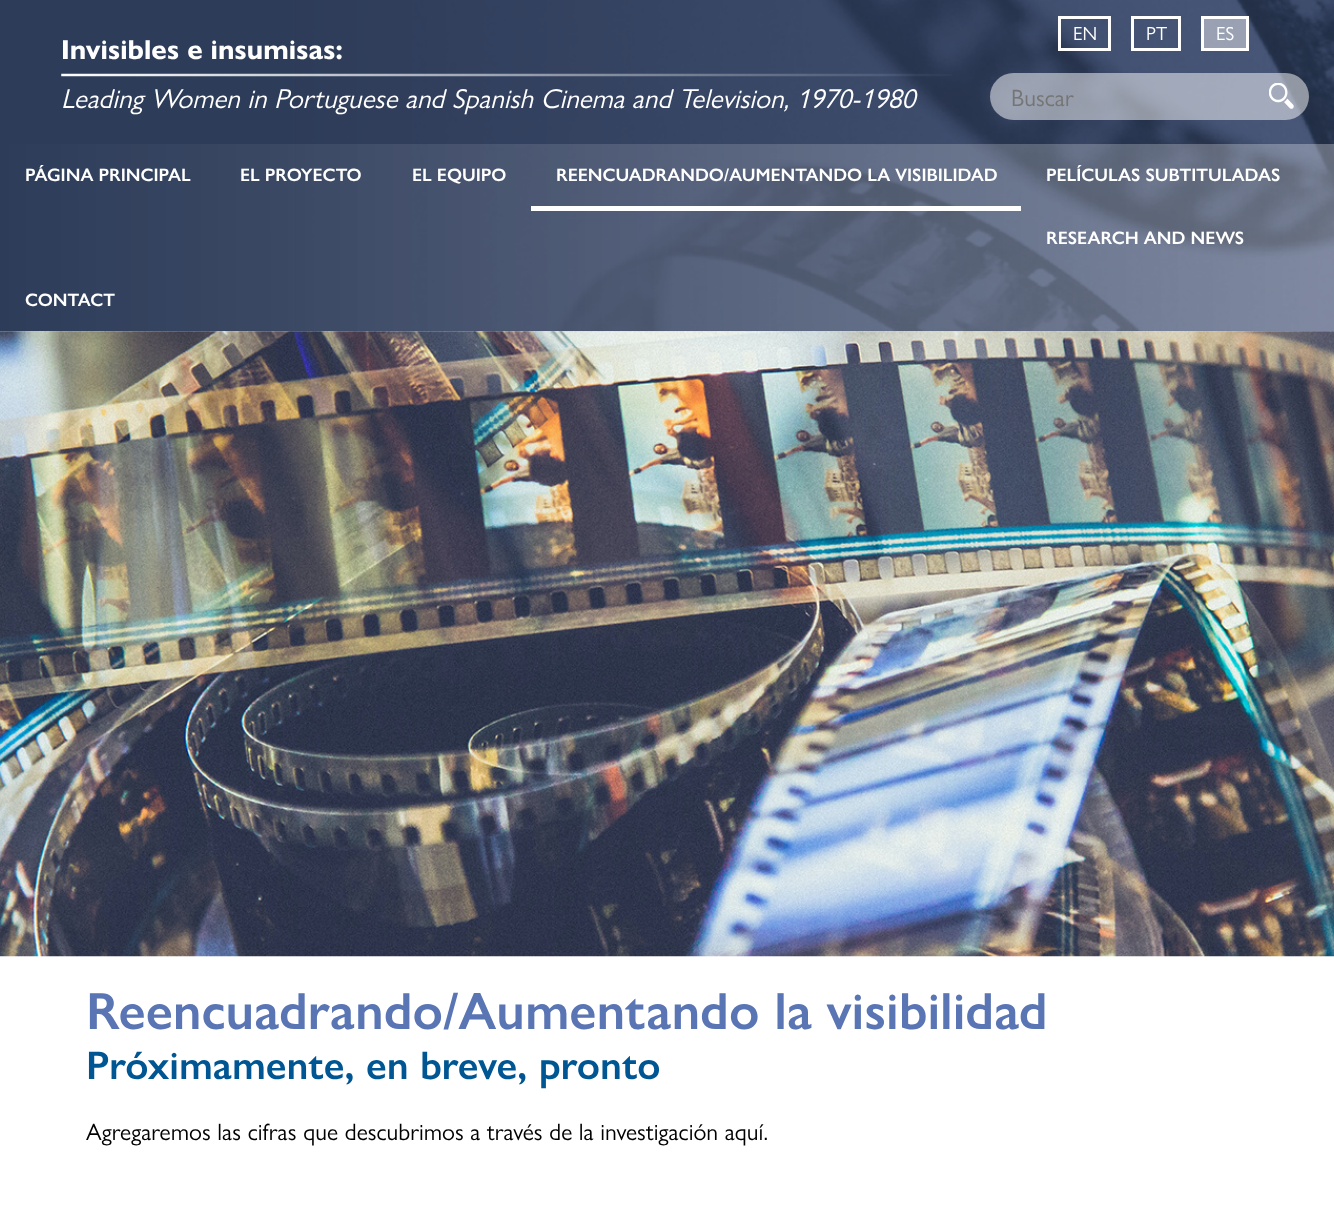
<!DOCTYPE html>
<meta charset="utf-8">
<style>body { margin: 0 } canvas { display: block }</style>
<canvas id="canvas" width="1334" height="1229"></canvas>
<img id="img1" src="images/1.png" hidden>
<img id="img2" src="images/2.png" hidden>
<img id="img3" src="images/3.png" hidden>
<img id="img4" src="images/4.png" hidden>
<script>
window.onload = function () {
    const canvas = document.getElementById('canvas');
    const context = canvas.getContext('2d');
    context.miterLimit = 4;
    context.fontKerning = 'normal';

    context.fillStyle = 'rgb(255, 255, 255)';
    context.fillRect(0, 0, 1334, 1229);
    context.drawImage(document.getElementById('img1'), 0, 0, 1334, 332);
    context.drawImage(document.getElementById('img2'), 61, 73, 891, 4);
    context.strokeStyle = 'rgb(255, 255, 255)';
    context.lineWidth = 3;
    context.strokeRect(1059.5, 17.5, 50, 32);
    context.strokeRect(1132.5, 17.5, 47, 32);
    context.fillStyle = 'rgba(255, 255, 255, 0.45)';
    context.beginPath();
    context.rect(1202.5, 17.5, 45, 32);
    context.fill();
    context.stroke();
    context.fillStyle = 'rgba(255, 255, 255, 0.5)';
    context.beginPath();
    context.roundRect(990, 73, 319, 47, 23.5);
    context.fill();
    context.drawImage(document.getElementById('img3'), 1269, 83, 25, 26);
    context.fillStyle = 'rgb(255, 255, 255)';
    context.fillRect(531, 206, 490, 5);
    context.drawImage(document.getElementById('img4'), 0, 331, 1334, 626);
    context.font = 'bold 27.5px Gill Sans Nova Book';
    context.fillText('Invisibles e insumisas:', 61, 59);
    context.font = 'italic 27.5px Gill Sans Nova Book';
    context.fillText('Leading Women in Portuguese and Spanish Cinema and Television, 1970-1980', 61, 108);
    context.font = '19px Gill Sans Nova Book';
    context.fillText('EN', 1073, 40);
    context.fillText('PT', 1146, 40);
    context.fillText('ES', 1216, 40);
    context.font = '23.75px Gill Sans Nova Book';
    context.fillStyle = 'rgb(117, 117, 117)';
    context.fillText('Buscar', 1011, 106);
    context.font = '600 18.1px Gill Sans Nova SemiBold';
    context.fillStyle = 'rgb(255, 255, 255)';
    context.fillText('PÁGINA PRINCIPAL', 25, 181);
    context.fillText('EL PROYECTO', 240, 181);
    context.fillText('EL EQUIPO', 412, 181);
    context.fillText('REENCUADRANDO/AUMENTANDO LA VISIBILIDAD', 556, 181);
    context.fillText('PELÍCULAS SUBTITULADAS', 1046, 181);
    context.fillText('RESEARCH AND NEWS', 1046, 244);
    context.fillText('CONTACT', 25, 306);
    context.font = '600 52.5px Gill Sans Nova SemiBold';
    context.fillStyle = 'rgb(89, 117, 180)';
    context.fillText('Reencuadrando/Aumentando la visibilidad', 86, 1029);
    context.font = '600 40px Gill Sans Nova SemiBold';
    context.fillStyle = 'rgb(0, 86, 147)';
    context.fillText('Próximamente, en breve, pronto', 86, 1079);
    context.font = '23.75px Gill Sans Nova Book';
    context.fillStyle = 'rgb(0, 0, 0)';
    context.fillText('Agregaremos las cifras que descubrimos a través de la investigación aquí.', 86, 1140);
};
</script>
